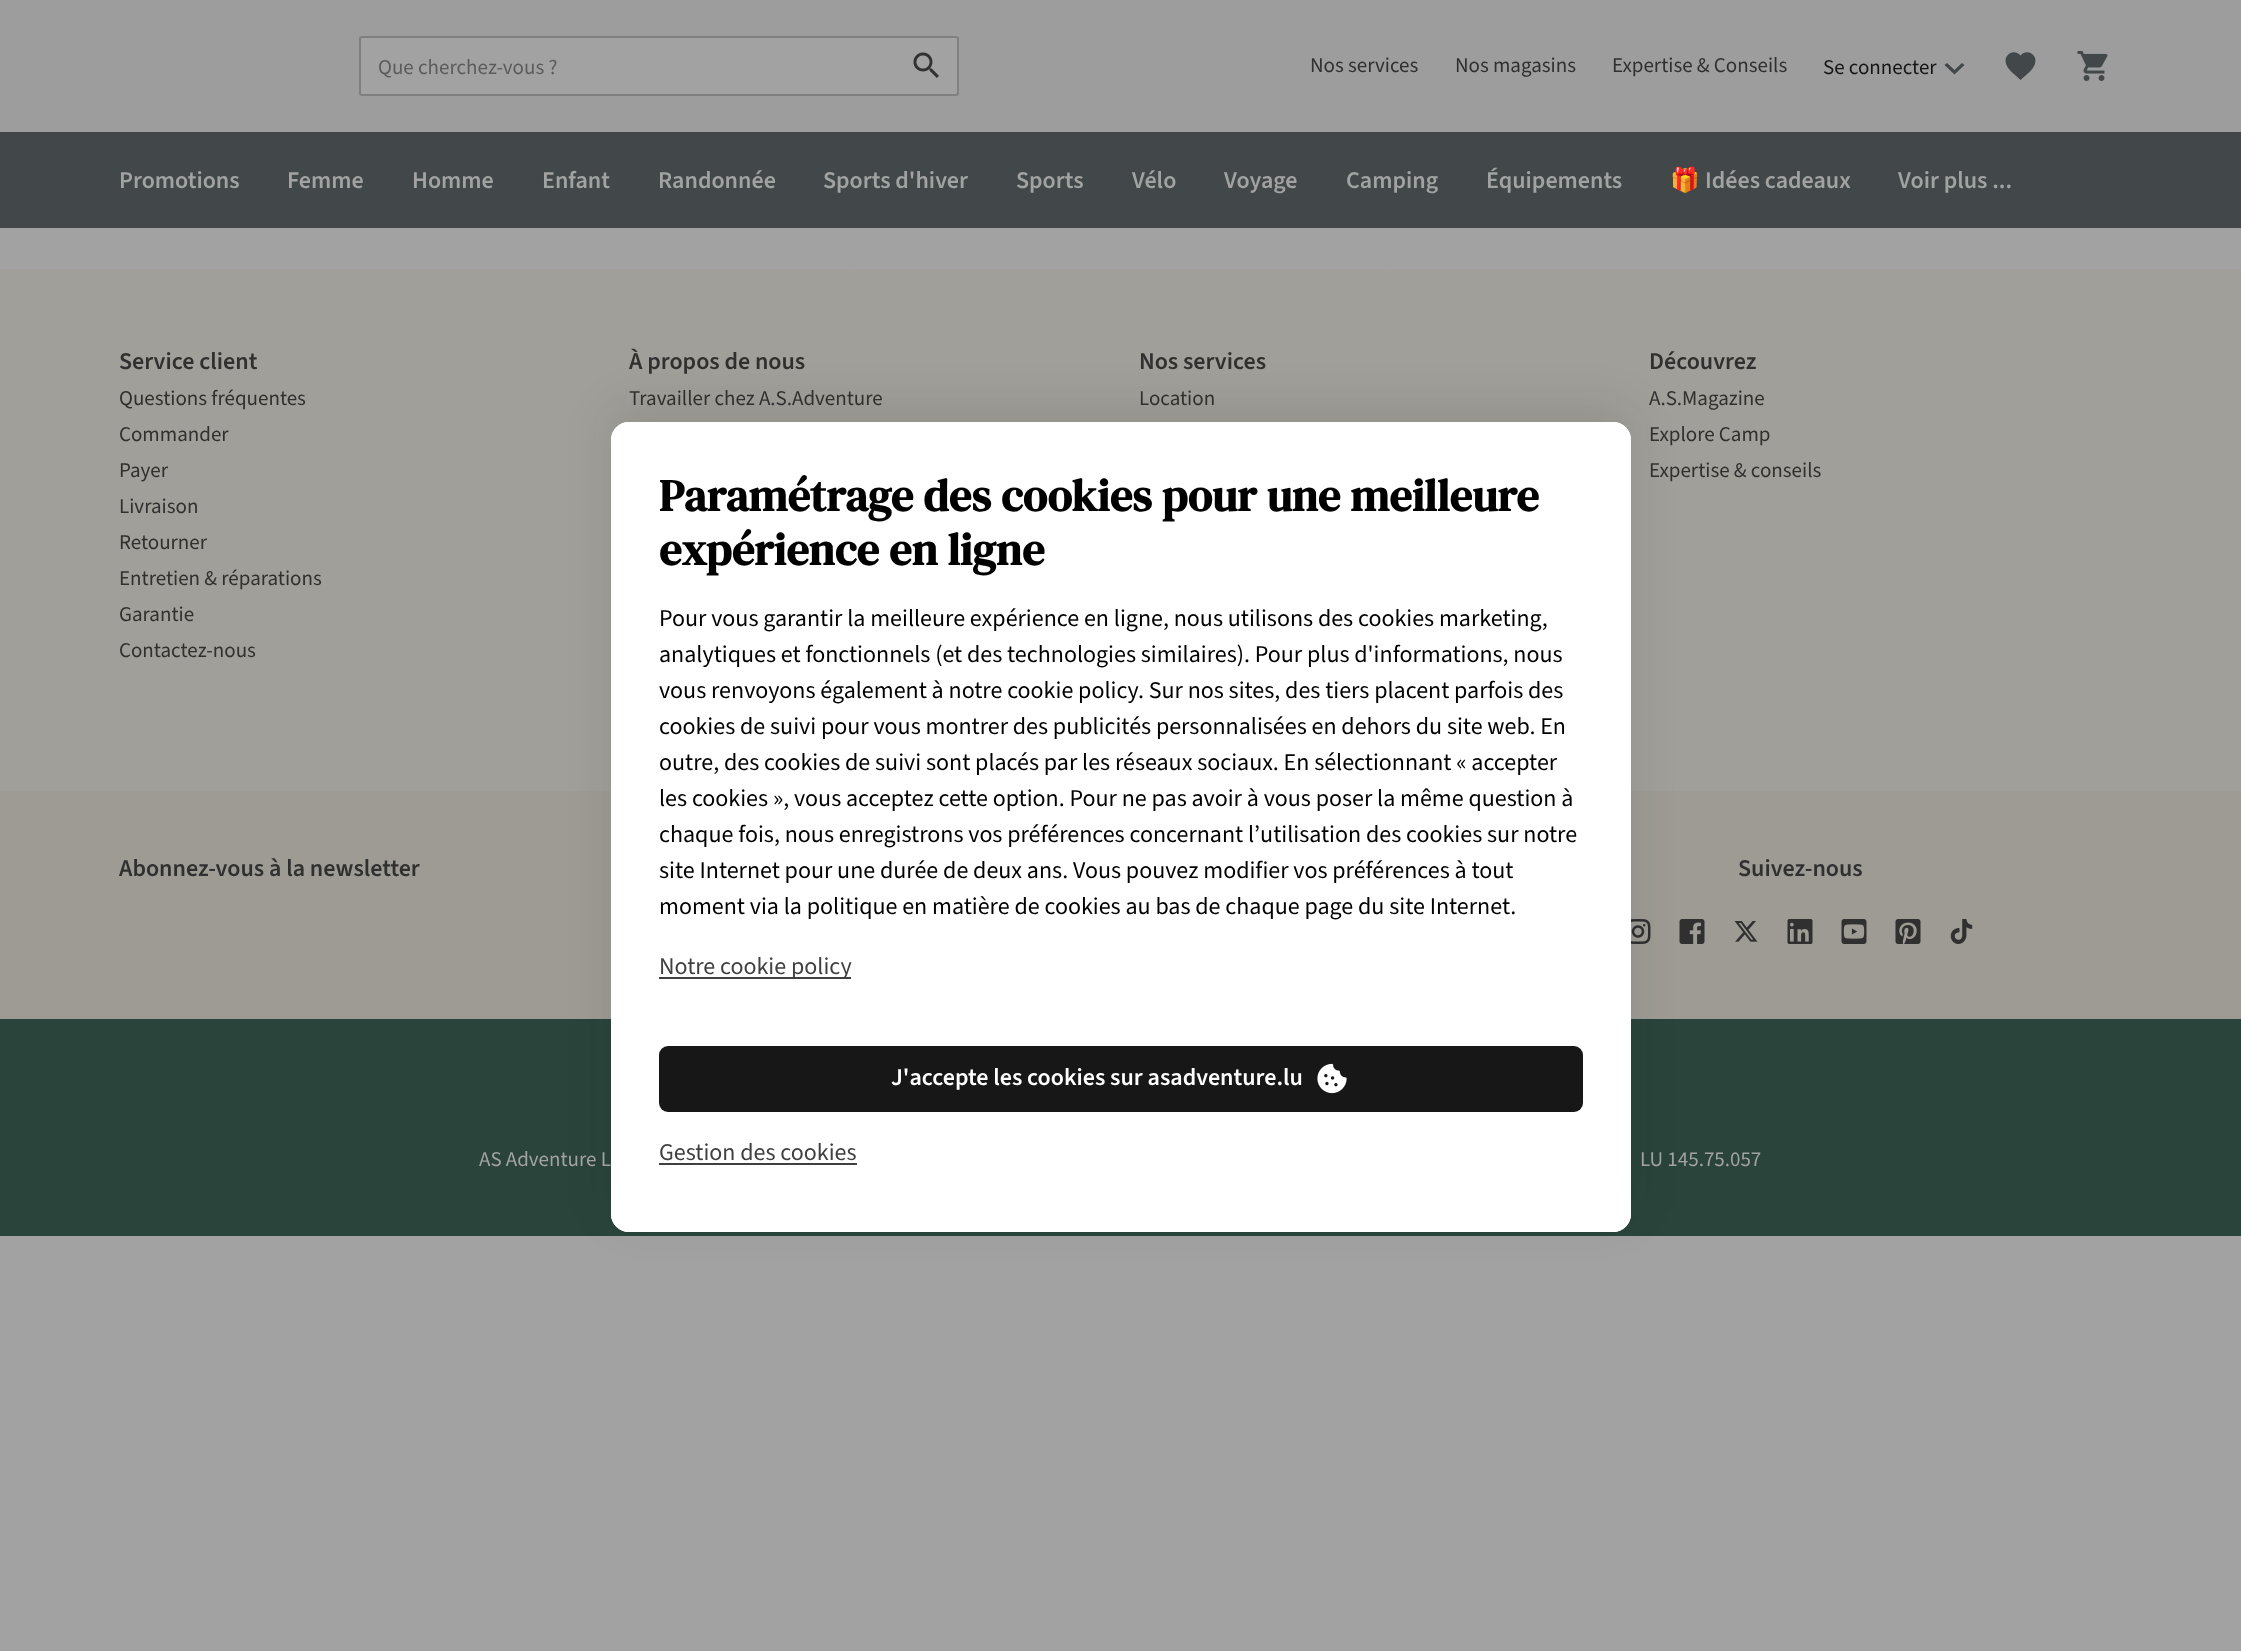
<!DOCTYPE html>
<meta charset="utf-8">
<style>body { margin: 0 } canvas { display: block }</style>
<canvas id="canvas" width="2241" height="1651"></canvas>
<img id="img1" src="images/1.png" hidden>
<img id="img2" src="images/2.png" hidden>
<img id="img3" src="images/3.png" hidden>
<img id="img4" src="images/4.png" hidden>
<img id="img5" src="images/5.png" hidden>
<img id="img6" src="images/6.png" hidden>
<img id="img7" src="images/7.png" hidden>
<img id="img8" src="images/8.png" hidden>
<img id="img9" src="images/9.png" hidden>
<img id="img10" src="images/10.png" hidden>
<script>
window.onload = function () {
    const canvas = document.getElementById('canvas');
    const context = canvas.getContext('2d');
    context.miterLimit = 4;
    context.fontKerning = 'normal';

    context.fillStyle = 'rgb(162, 162, 162)';
    context.fillRect(0, 0, 2241, 1651);
    context.fillStyle = 'rgb(157, 157, 157)';
    context.fillRect(0, 0, 2241, 132);
    context.fillStyle = 'rgb(162, 162, 162)';
    context.beginPath();
    context.roundRect(360, 37, 598, 58, 2);
    context.fill();
    context.strokeStyle = 'rgb(128, 128, 128)';
    context.lineWidth = 2;
    context.stroke();
    context.drawImage(document.getElementById('img1'), 913, 52, 26, 26);
    context.fillStyle = 'rgb(66, 72, 73)';
    context.beginPath();
    context.moveTo(1954.5, 74.5);
    context.lineTo(1944.5, 65);
    context.lineTo(1947, 63);
    context.lineTo(1954.5, 70);
    context.lineTo(1962, 63);
    context.lineTo(1964.5, 65);
    context.closePath();
    context.fill();
    context.beginPath();
    context.moveTo(2020.5, 80);
    context.bezierCurveTo(2016, 75.5, 2009, 71, 2006.5, 65);
    context.bezierCurveTo(2002, 55, 2014, 48, 2020.5, 55.5);
    context.bezierCurveTo(2027, 48, 2039, 55, 2034.5, 65);
    context.bezierCurveTo(2032, 71, 2025.5, 75.5, 2020.5, 80);
    context.closePath();
    context.fill();
    context.drawImage(document.getElementById('img2'), 2077, 51, 31, 30);
    context.fillRect(0, 132, 2241, 96);
    context.fillStyle = 'rgb(160, 159, 153)';
    context.fillRect(0, 269, 2241, 522);
    context.fillStyle = 'rgb(157, 155, 148)';
    context.fillRect(0, 791, 2241, 228);
    context.drawImage(document.getElementById('img3'), 1631, 919, 20, 25);
    context.drawImage(document.getElementById('img4'), 1679, 919, 26, 25);
    context.drawImage(document.getElementById('img5'), 1734, 921, 24, 21);
    context.drawImage(document.getElementById('img6'), 1787, 919, 26, 25);
    context.drawImage(document.getElementById('img7'), 1841, 919, 26, 25);
    context.drawImage(document.getElementById('img8'), 1895, 919, 26, 25);
    context.drawImage(document.getElementById('img9'), 1950, 919, 23, 25);
    context.fillStyle = 'rgb(42, 68, 59)';
    context.fillRect(0, 1019, 2241, 217);
    context.fillStyle = 'rgb(162, 162, 162)';
    context.beginPath();
    context.roundRect(852, 261, 537, 8, [24, 24, 0, 0]);
    context.fill();
    context.fillStyle = 'rgba(15, 15, 15, 0.1)';
    context.filter = 'blur(22.5px)';
    context.beginPath();
    context.roundRect(611, 407, 1020, 810, 18);
    context.fill();
    context.filter = 'none';
    context.fillStyle = 'rgb(255, 255, 255)';
    context.beginPath();
    context.roundRect(611, 422, 1020, 810, 18);
    context.fill();
    context.beginPath();
    context.roundRect(611, 422, 1020, 48, [18, 18, 0, 0]);
    context.fill();
    context.fillStyle = 'rgb(64, 64, 64)';
    context.fillRect(659, 977, 192, 2);
    context.fillStyle = 'rgb(23, 23, 23)';
    context.beginPath();
    context.roundRect(659, 1046, 924, 66, 9);
    context.fill();
    context.drawImage(document.getElementById('img10'), 1317, 1063, 30, 31);
    context.fillStyle = 'rgb(64, 64, 64)';
    context.fillRect(659, 1163, 198, 2);
    context.fillStyle = 'rgb(255, 255, 255)';
    context.beginPath();
    context.roundRect(611, 1184, 1020, 48, [0, 0, 18, 18]);
    context.fill();
    context.font = '21px "Source Sans 3"';
    context.fillStyle = 'rgb(92, 92, 92)';
    context.fillText('Que cherchez-vous ?', 378, 74);
    context.fillStyle = 'rgb(48, 48, 48)';
    context.fillText('Nos services', 1310, 72);
    context.fillText('Nos magasins', 1455, 72);
    context.fillText('Expertise & Conseils', 1612, 72);
    context.fillStyle = 'rgb(22, 22, 22)';
    context.fillText('Se connecter', 1823, 74);
    context.font = '600 24px "Source Sans 3"';
    context.fillStyle = 'rgb(162, 162, 162)';
    context.fillText('Promotions', 119, 188);
    context.fillText('Femme', 287, 188);
    context.fillText('Homme', 412, 188);
    context.fillText('Enfant', 542, 188);
    context.fillText('Randonnée', 658, 188);
    context.fillText('Sports d\'hiver', 823, 188);
    context.fillText('Sports', 1016, 188);
    context.fillText('Vélo', 1132, 188);
    context.fillText('Voyage', 1224, 188);
    context.fillText('Camping', 1346, 188);
    context.fillText('Équipements', 1486, 188);
    context.font = 'bold 24px Noto Color Emoji';
    context.fillText('🎁', 1670, 188);
    context.font = '600 24px "Source Sans 3"';
    context.fillText('Idées cadeaux', 1705, 188);
    context.fillText('Voir plus ...', 1898, 188);
    context.fillStyle = 'rgb(48, 48, 48)';
    context.fillText('Service client', 119, 369);
    context.font = '21px "Source Sans 3"';
    context.fillText('Questions fréquentes', 119, 405);
    context.fillText('Commander', 119, 441);
    context.fillText('Payer', 119, 477);
    context.fillText('Livraison', 119, 513);
    context.fillText('Retourner', 119, 549);
    context.fillText('Entretien & réparations', 119, 585);
    context.fillText('Garantie', 119, 621);
    context.fillText('Contactez-nous', 119, 657);
    context.font = '600 24px "Source Sans 3"';
    context.fillText('À propos de nous', 629, 369);
    context.font = '21px "Source Sans 3"';
    context.fillText('Travailler chez A.S.Adventure', 629, 405);
    context.font = '600 24px "Source Sans 3"';
    context.fillText('Nos services', 1139, 369);
    context.font = '21px "Source Sans 3"';
    context.fillText('Location', 1139, 405);
    context.font = '600 24px "Source Sans 3"';
    context.fillText('Découvrez', 1649, 369);
    context.font = '21px "Source Sans 3"';
    context.fillText('A.S.Magazine', 1649, 405);
    context.fillText('Explore Camp', 1649, 441);
    context.fillText('Expertise & conseils', 1649, 477);
    context.font = '600 24px "Source Sans 3"';
    context.fillText('Abonnez-vous à la newsletter', 119, 876);
    context.fillText('Suivez-nous', 1738, 876);
    context.font = '21px "Source Sans 3"';
    context.fillStyle = 'rgb(162, 162, 162)';
    context.fillText('AS Adventure L', 479, 1166);
    context.fillText('LU 145.75.057', 1640, 1166);
    context.font = 'bold 45px DM Serif Text';
    context.fillStyle = 'rgb(0, 0, 0)';
    context.fillText('Paramétrage des cookies pour une meilleure', 659, 511);
    context.fillText('expérience en ligne', 659, 565);
    context.font = '24px "Source Sans 3"';
    context.fillText('Pour vous garantir la meilleure expérience en ligne, nous utilisons des cookies marketing,', 659, 626);
    context.fillText('analytiques et fonctionnels (et des technologies similaires). Pour plus d\'informations, nous', 659, 662);
    context.fillText('vous renvoyons également à notre cookie policy. Sur nos sites, des tiers placent parfois des', 659, 698);
    context.fillText('cookies de suivi pour vous montrer des publicités personnalisées en dehors du site web. En', 659, 734);
    context.fillText('outre, des cookies de suivi sont placés par les réseaux sociaux. En sélectionnant « accepter', 659, 770);
    context.fillText('les cookies », vous acceptez cette option. Pour ne pas avoir à vous poser la même question à', 659, 806);
    context.fillText('chaque fois, nous enregistrons vos préférences concernant l’utilisation des cookies sur notre', 659, 842);
    context.fillText('site Internet pour une durée de deux ans. Vous pouvez modifier vos préférences à tout', 659, 878);
    context.fillText('moment via la politique en matière de cookies au bas de chaque page du site Internet.', 659, 914);
    context.fillStyle = 'rgb(64, 64, 64)';
    context.fillText('Notre cookie policy', 659, 974);
    context.font = '600 24px "Source Sans 3"';
    context.fillStyle = 'rgb(255, 255, 255)';
    context.fillText('J\'accepte les cookies sur asadventure.lu', 891, 1085);
    context.font = '24px "Source Sans 3"';
    context.fillStyle = 'rgb(64, 64, 64)';
    context.fillText('Gestion des cookies', 659, 1160);
};
</script>
